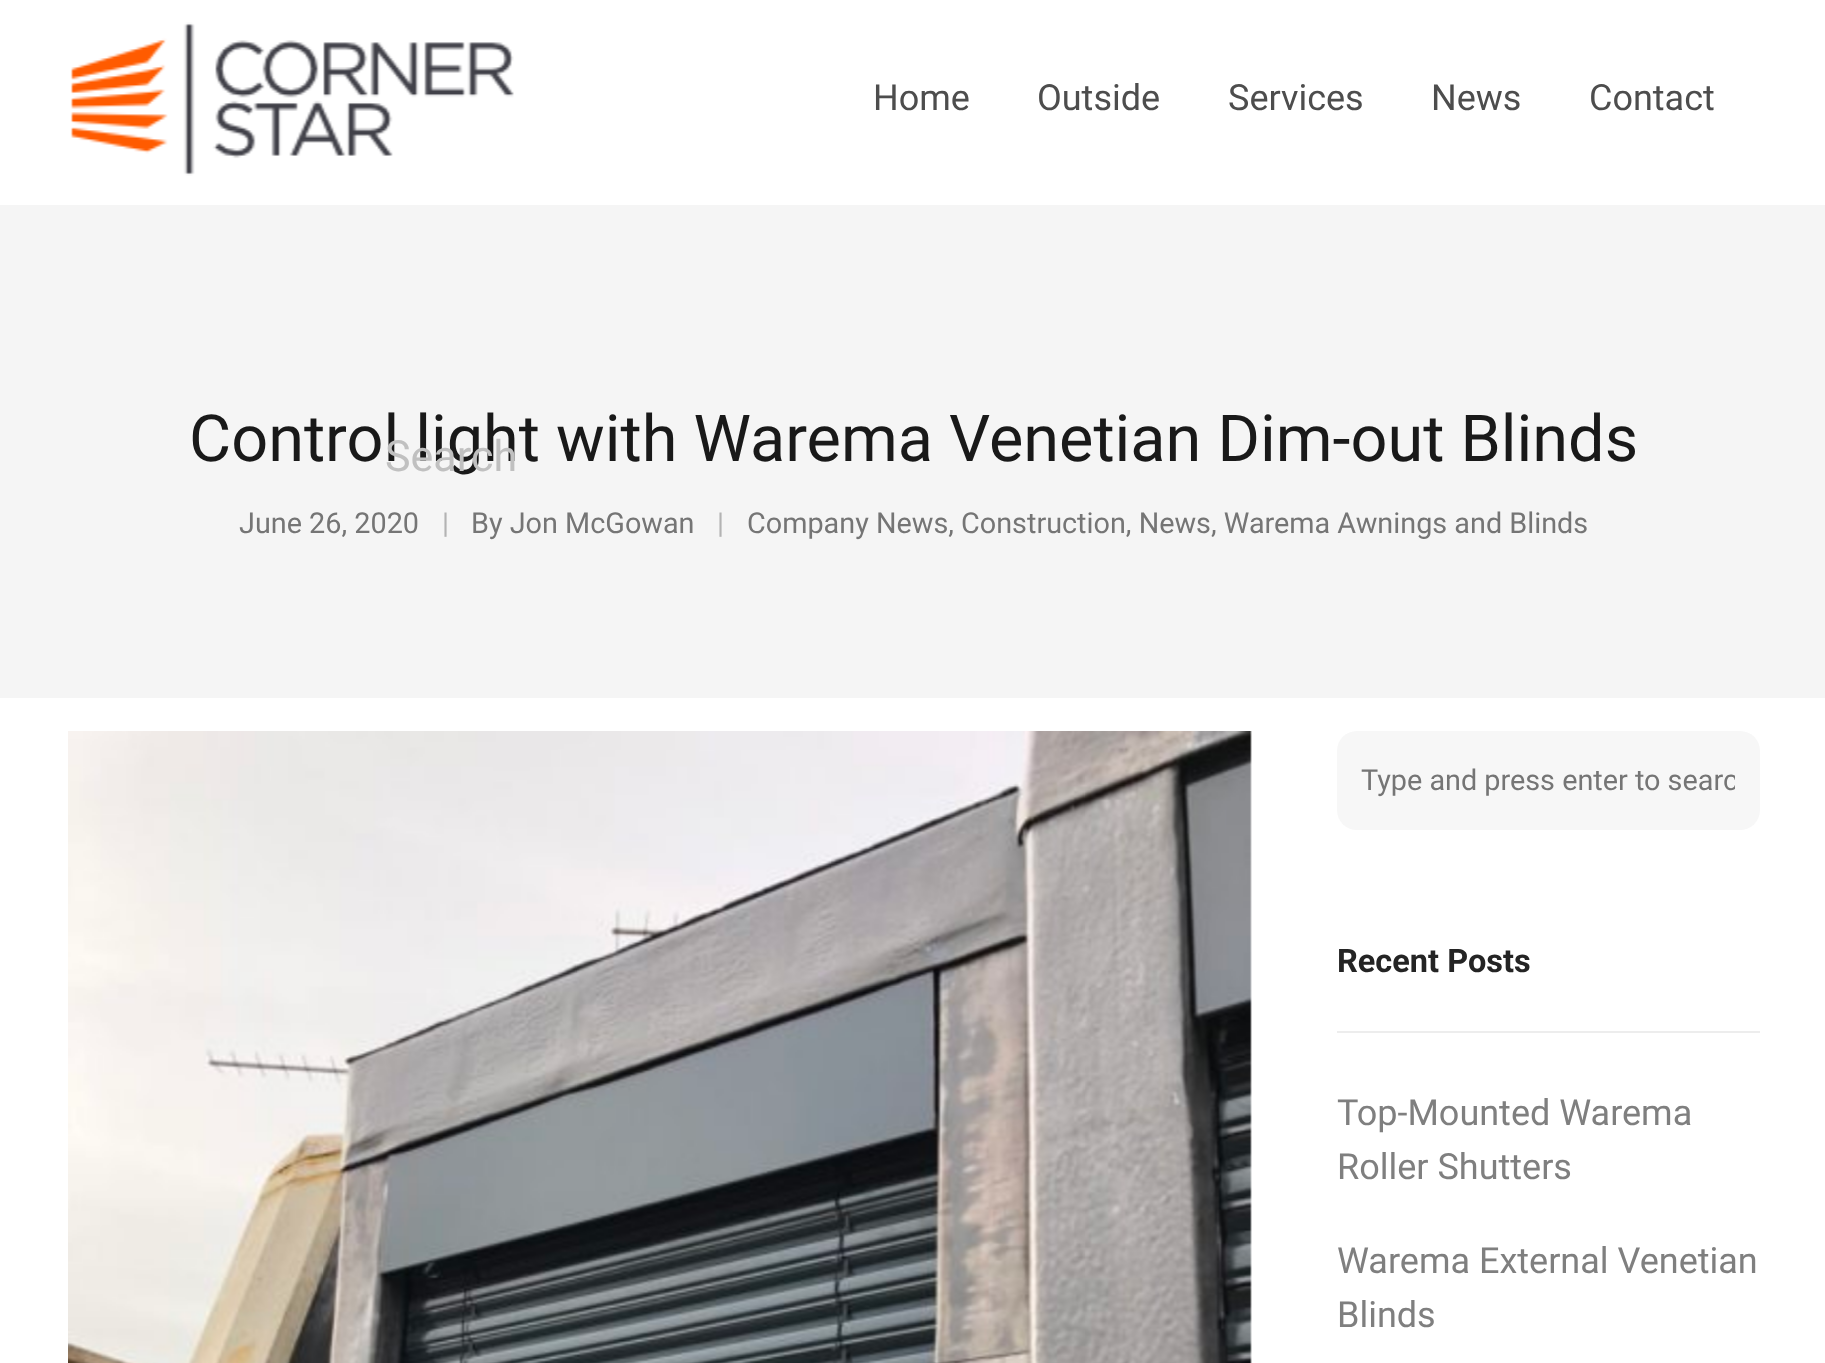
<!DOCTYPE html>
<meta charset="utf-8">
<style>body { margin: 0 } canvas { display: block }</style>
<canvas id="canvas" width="1825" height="1363"></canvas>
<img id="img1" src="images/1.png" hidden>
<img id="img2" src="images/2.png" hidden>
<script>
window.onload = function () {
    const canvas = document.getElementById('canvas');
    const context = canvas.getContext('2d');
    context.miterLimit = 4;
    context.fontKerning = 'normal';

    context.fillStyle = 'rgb(255, 255, 255)';
    context.fillRect(0, 0, 1825, 1363);
    context.drawImage(document.getElementById('img1'), 70, 22, 444, 154);
    context.fillStyle = 'rgb(245, 245, 245)';
    context.fillRect(0, 205, 1825, 493);
    context.drawImage(document.getElementById('img2'), 68, 731, 1184, 632);
    context.fillStyle = 'rgb(247, 247, 247)';
    context.beginPath();
    context.roundRect(1337, 731, 423, 99, 20);
    context.fill();
    context.fillStyle = 'rgb(237, 237, 237)';
    context.fillRect(1337, 1031, 423, 2);
    context.font = '36px Roboto';
    context.fillStyle = 'rgb(77, 77, 77)';
    context.fillText('Home', 873, 110);
    context.fillText('Outside', 1037, 110);
    context.fillText('Services', 1228, 110);
    context.fillText('News', 1431, 110);
    context.fillText('Contact', 1589, 110);
    context.font = '64.8px Roboto';
    context.fillStyle = 'rgb(25, 25, 25)';
    context.fillText('Control light with Warema Venetian Dim-out Blinds', 189, 461);
    context.font = '43px Roboto';
    context.fillStyle = 'rgb(192, 192, 192)';
    context.fillText('Search', 385, 471);
    context.font = '28.8px Roboto';
    context.fillStyle = 'rgb(117, 117, 117)';
    context.fillText('June 26, 2020', 239, 533);
    context.fillStyle = 'rgb(179, 179, 179)';
    context.fillText('|', 442, 533);
    context.fillStyle = 'rgb(117, 117, 117)';
    context.fillText('By Jon McGowan', 471, 533);
    context.fillStyle = 'rgb(179, 179, 179)';
    context.fillText('|', 717, 533);
    context.fillStyle = 'rgb(117, 117, 117)';
    context.fillText('Company News, Construction, News, Warema Awnings and Blinds', 747, 533);
    context.save();
    context.beginPath();
    context.rect(1361, 763, 374, 34);
    context.clip();
    context.fillText('Type and press enter to searc', 1361, 790);
    context.restore();
    context.font = 'bold 32.5px Roboto';
    context.fillStyle = 'rgb(36, 36, 36)';
    context.fillText('Recent Posts', 1337, 972);
    context.font = '36px Roboto';
    context.fillStyle = 'rgb(127, 127, 127)';
    context.fillText('Top-Mounted Warema', 1337, 1125);
    context.fillText('Roller Shutters', 1337, 1179);
    context.fillText('Warema External Venetian', 1337, 1273);
    context.fillText('Blinds', 1337, 1327);
};
</script>
